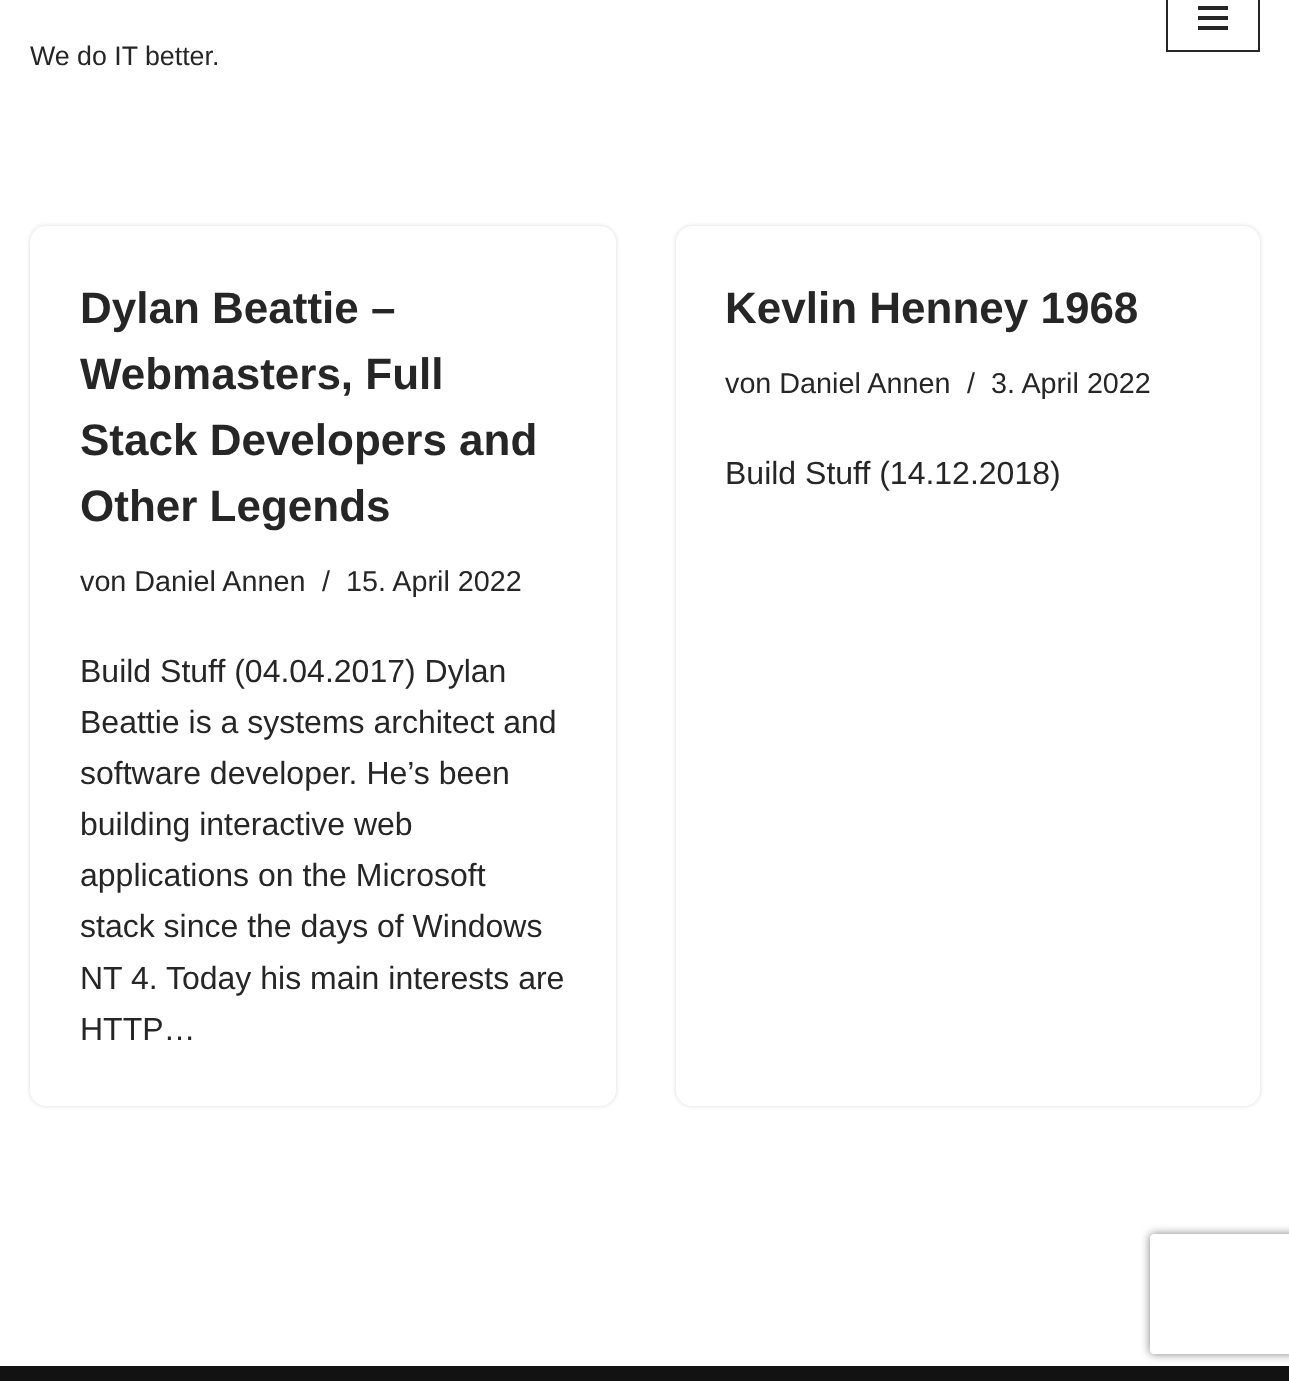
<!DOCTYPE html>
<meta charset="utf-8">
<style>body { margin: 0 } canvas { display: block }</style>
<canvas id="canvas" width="1289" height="1381"></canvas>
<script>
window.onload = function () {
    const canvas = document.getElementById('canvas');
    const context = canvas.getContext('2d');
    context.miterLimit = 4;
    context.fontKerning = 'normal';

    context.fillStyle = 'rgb(255, 255, 255)';
    context.fillRect(0, 0, 1289, 1381);
    context.strokeStyle = 'rgb(39, 38, 38)';
    context.lineWidth = 2;
    context.strokeRect(1167, -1, 92, 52);
    context.fillStyle = 'rgb(39, 38, 38)';
    context.fillRect(1198, 6, 30, 4);
    context.fillRect(1198, 16, 30, 4);
    context.fillRect(1198, 26, 30, 4);
    context.fillStyle = 'rgba(0, 0, 0, 0.15)';
    context.filter = 'blur(2px)';
    context.beginPath();
    context.roundRect(30, 226, 586, 880, 16);
    context.fill();
    context.filter = 'none';
    context.fillStyle = 'rgb(255, 255, 255)';
    context.beginPath();
    context.roundRect(30, 226, 586, 880, 16);
    context.fill();
    context.fillStyle = 'rgba(0, 0, 0, 0.15)';
    context.filter = 'blur(2px)';
    context.beginPath();
    context.roundRect(676, 226, 584, 880, 16);
    context.fill();
    context.filter = 'none';
    context.fillStyle = 'rgb(255, 255, 255)';
    context.beginPath();
    context.roundRect(676, 226, 584, 880, 16);
    context.fill();
    context.save();
    context.beginPath();
    context.moveTo(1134, 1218);
    context.lineTo(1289, 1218);
    context.lineTo(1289, 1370);
    context.lineTo(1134, 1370);
    context.closePath();
    context.moveTo(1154, 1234);
    context.lineTo(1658, 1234);
    context.bezierCurveTo(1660, 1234, 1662, 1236, 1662, 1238);
    context.lineTo(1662, 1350);
    context.bezierCurveTo(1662, 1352, 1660, 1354, 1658, 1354);
    context.lineTo(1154, 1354);
    context.bezierCurveTo(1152, 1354, 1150, 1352, 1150, 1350);
    context.lineTo(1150, 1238);
    context.bezierCurveTo(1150, 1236, 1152, 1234, 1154, 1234);
    context.closePath();
    context.clip('evenodd');
    context.fillStyle = 'rgb(128, 128, 128)';
    context.filter = 'blur(5px)';
    context.beginPath();
    context.roundRect(1150, 1234, 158, 120, 4);
    context.fill();
    context.filter = 'none';
    context.restore();
    context.fillStyle = 'rgb(18, 18, 18)';
    context.fillRect(0, 1366, 1289, 15);
    context.font = '26.75px Liberation Sans';
    context.fillStyle = 'rgb(39, 38, 38)';
    context.fillText('We do IT better.', 30, 65);
    context.font = 'bold 44px Liberation Sans';
    context.fillText('Dylan Beattie –', 80, 323);
    context.fillText('Webmasters, Full', 80, 389);
    context.fillText('Stack Developers and', 80, 455);
    context.fillText('Other Legends', 80, 521);
    context.font = '28.75px Liberation Sans';
    context.fillText('von Daniel Annen', 80, 591);
    context.fillText('/', 322, 591);
    context.fillText('15. April 2022', 346, 591);
    context.font = '32px Liberation Sans';
    context.fillText('Build Stuff (04.04.2017) Dylan', 80, 682);
    context.fillText('Beattie is a systems architect and', 80, 733);
    context.fillText('software developer. He’s been', 80, 784);
    context.fillText('building interactive web', 80, 835);
    context.fillText('applications on the Microsoft', 80, 886);
    context.fillText('stack since the days of Windows', 80, 937);
    context.fillText('NT 4. Today his main interests are', 80, 989);
    context.fillText('HTTP…', 80, 1040);
    context.font = 'bold 44px Liberation Sans';
    context.fillText('Kevlin Henney 1968', 725, 323);
    context.font = '28.75px Liberation Sans';
    context.fillText('von Daniel Annen', 725, 393);
    context.fillText('/', 967, 393);
    context.fillText('3. April 2022', 991, 393);
    context.font = '32px Liberation Sans';
    context.fillText('Build Stuff (14.12.2018)', 725, 484);
};
</script>
